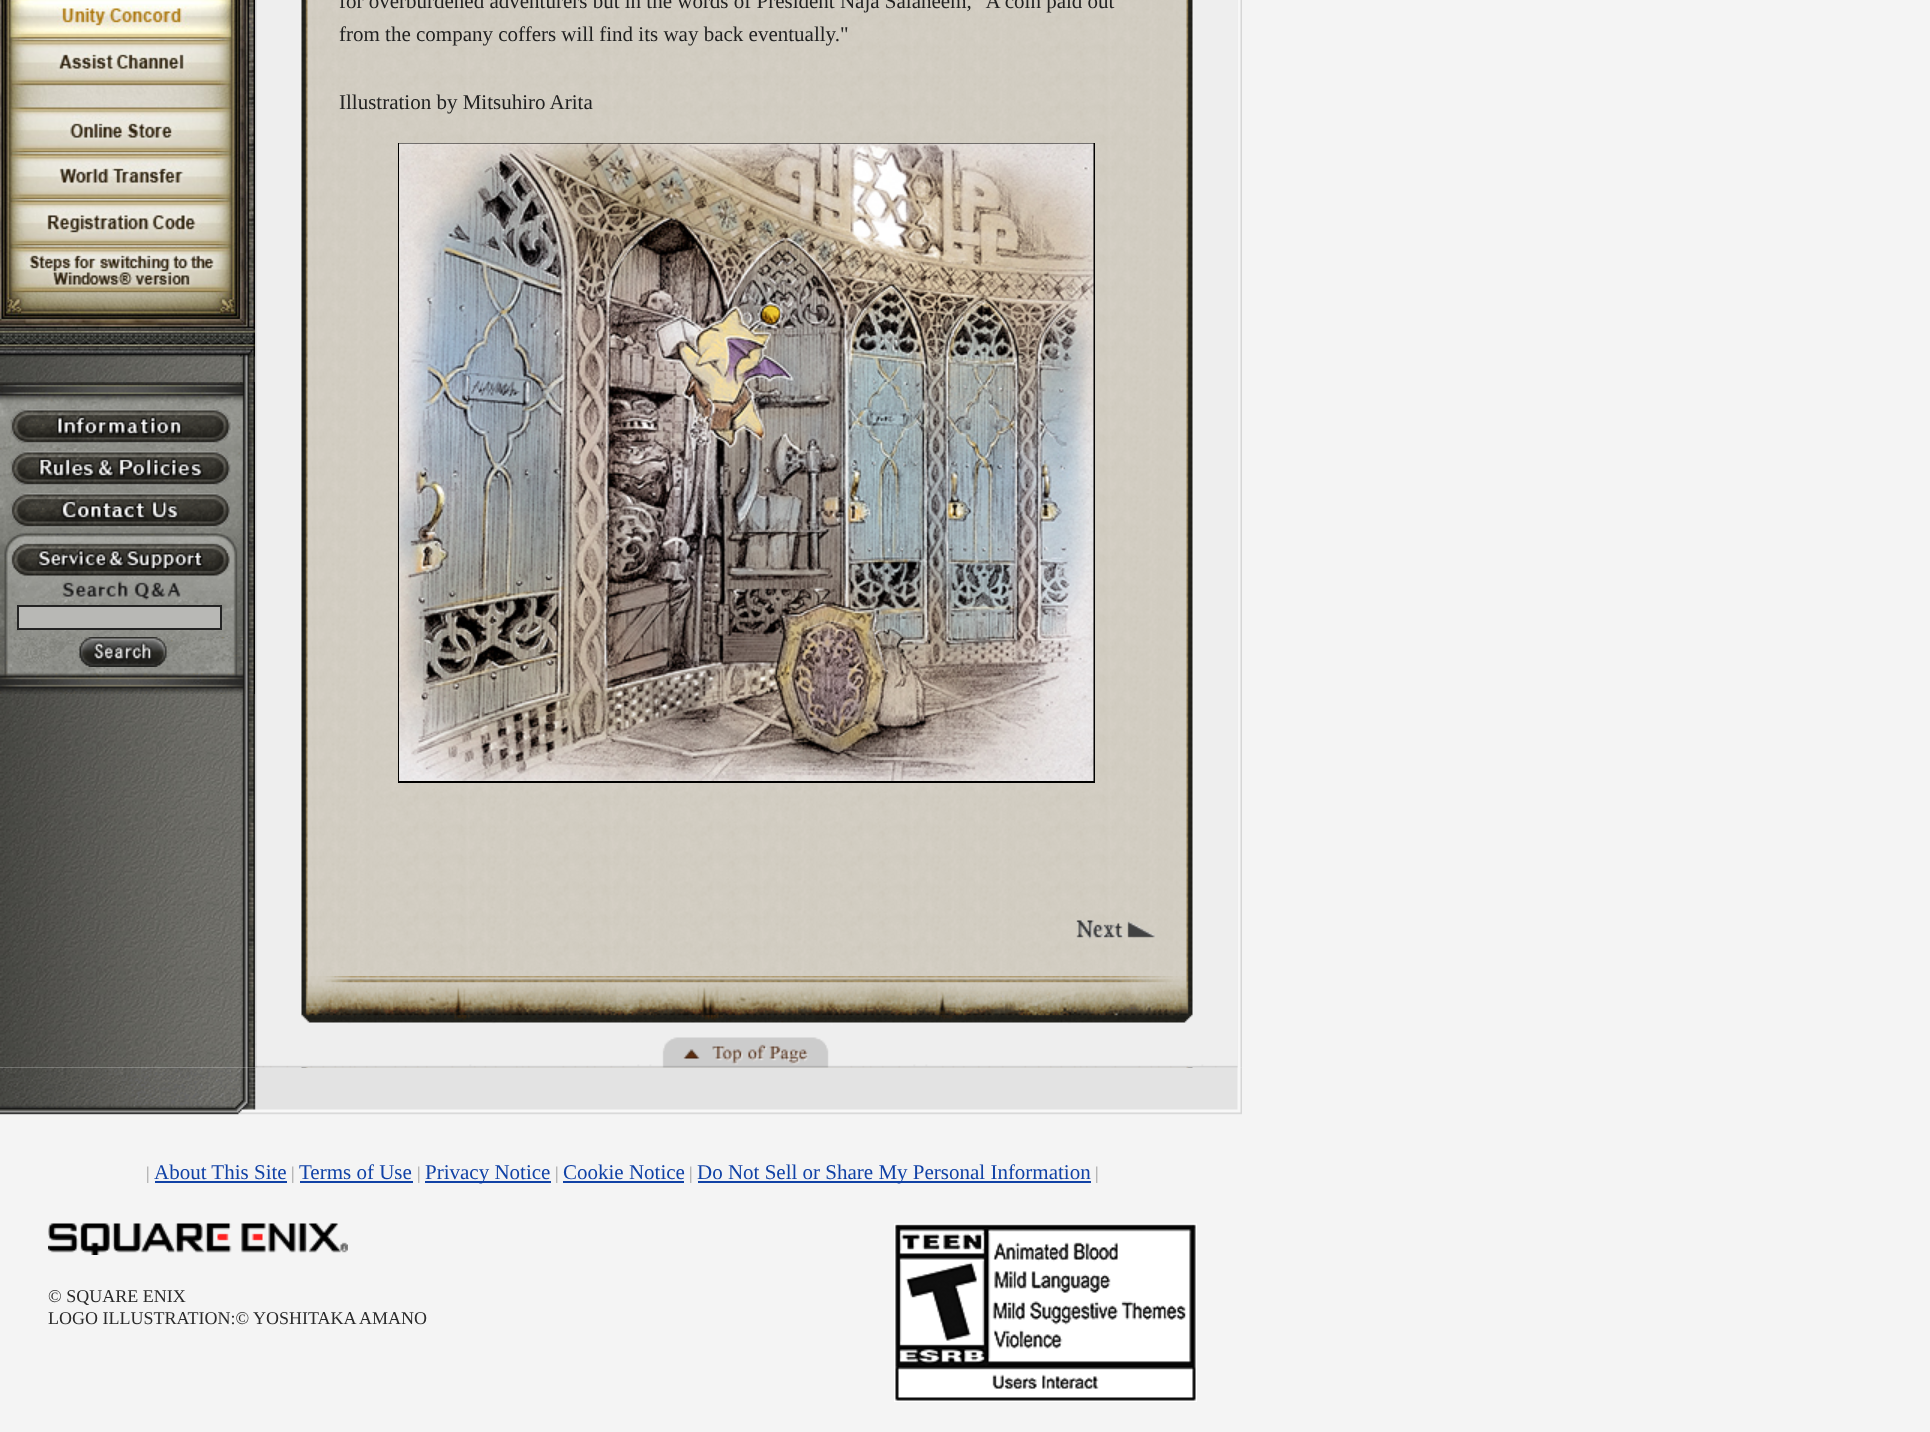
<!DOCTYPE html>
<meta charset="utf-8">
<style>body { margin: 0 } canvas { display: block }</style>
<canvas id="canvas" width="1930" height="1432"></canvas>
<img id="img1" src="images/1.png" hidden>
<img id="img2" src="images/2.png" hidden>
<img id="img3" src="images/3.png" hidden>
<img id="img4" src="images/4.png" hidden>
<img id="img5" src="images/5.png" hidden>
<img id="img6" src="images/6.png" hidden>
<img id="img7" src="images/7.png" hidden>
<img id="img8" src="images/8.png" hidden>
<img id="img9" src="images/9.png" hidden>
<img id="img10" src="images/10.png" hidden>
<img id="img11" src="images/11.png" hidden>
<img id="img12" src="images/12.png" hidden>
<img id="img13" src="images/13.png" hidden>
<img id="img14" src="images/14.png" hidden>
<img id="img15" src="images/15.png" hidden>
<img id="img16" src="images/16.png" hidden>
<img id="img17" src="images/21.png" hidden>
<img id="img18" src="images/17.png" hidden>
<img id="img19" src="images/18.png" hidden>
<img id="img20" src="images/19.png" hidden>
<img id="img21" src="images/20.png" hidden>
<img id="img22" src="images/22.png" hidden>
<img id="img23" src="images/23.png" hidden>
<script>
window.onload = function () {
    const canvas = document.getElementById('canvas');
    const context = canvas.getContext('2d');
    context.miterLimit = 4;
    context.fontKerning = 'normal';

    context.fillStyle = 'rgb(244, 244, 244)';
    context.fillRect(0, 0, 1930, 1432);
    context.drawImage(document.getElementById('img1'), 0, 0, 1242, 1068);
    context.drawImage(document.getElementById('img2'), 0, 40, 255, 317);
    context.drawImage(document.getElementById('img3'), 0, 0, 255, 40);
    context.drawImage(document.getElementById('img4'), 12, 41, 242, 46);
    context.drawImage(document.getElementById('img5'), 17, 106, 236, 45);
    context.drawImage(document.getElementById('img6'), 11, 152, 243, 46);
    context.drawImage(document.getElementById('img7'), 13, 199, 215, 45);
    context.drawImage(document.getElementById('img8'), 12, 245, 241, 46);
    context.drawImage(document.getElementById('img9'), 0, 382, 255, 195);
    context.drawImage(document.getElementById('img10'), 10, 409, 221, 35);
    context.drawImage(document.getElementById('img11'), 10, 451, 221, 35);
    context.drawImage(document.getElementById('img12'), 10, 493, 221, 35);
    context.drawImage(document.getElementById('img13'), 11, 542, 219, 35);
    context.drawImage(document.getElementById('img14'), 0, 577, 255, 60);
    context.fillStyle = 'rgb(184, 184, 181)';
    context.beginPath();
    context.rect(18, 606, 203, 23);
    context.fill();
    context.strokeStyle = 'rgb(35, 35, 35)';
    context.lineWidth = 2;
    context.stroke();
    context.drawImage(document.getElementById('img15'), 0, 637, 255, 57);
    context.drawImage(document.getElementById('img16'), 79, 637, 88, 30);
    context.drawImage(document.getElementById('img17'), 0, 1067, 1242, 48);
    context.drawImage(document.getElementById('img18'), 255, 0, 982, 1068);
    context.strokeStyle = 'rgb(0, 0, 0)';
    context.strokeRect(399, 144, 695, 638);
    context.drawImage(document.getElementById('img19'), 399, 143, 695, 638);
    context.drawImage(document.getElementById('img20'), 1076, 920, 79, 19);
    context.drawImage(document.getElementById('img21'), 255, 976, 983, 92);
    context.fillStyle = 'rgb(17, 66, 166)';
    context.fillRect(155, 1181, 132, 2);
    context.fillRect(300, 1181, 113, 2);
    context.fillRect(425, 1181, 126, 2);
    context.fillRect(563, 1181, 121, 2);
    context.fillRect(698, 1181, 393, 2);
    context.drawImage(document.getElementById('img22'), 48, 1223, 300, 32);
    context.drawImage(document.getElementById('img23'), 894, 1223, 303, 179);
    context.font = '21px Liberation Serif';
    context.fillStyle = 'rgb(34, 34, 34)';
    context.fillText('for overburdened adventurers but in the words of President Naja Salaheem, "A coin paid out', 339, 8);
    context.fillText('from the company coffers will find its way back eventually."', 339, 41);
    context.fillText('Illustration by Mitsuhiro Arita', 339, 109);
    context.font = '18px Liberation Serif';
    context.fillStyle = 'rgb(153, 153, 153)';
    context.fillText('|', 146, 1179);
    context.font = '21px Liberation Serif';
    context.fillStyle = 'rgb(17, 66, 166)';
    context.fillText('About This Site', 154, 1179);
    context.font = '18px Liberation Serif';
    context.fillStyle = 'rgb(153, 153, 153)';
    context.fillText('|', 291, 1179);
    context.font = '21px Liberation Serif';
    context.fillStyle = 'rgb(17, 66, 166)';
    context.fillText('Terms of Use', 299, 1179);
    context.font = '18px Liberation Serif';
    context.fillStyle = 'rgb(153, 153, 153)';
    context.fillText('|', 417, 1179);
    context.font = '21px Liberation Serif';
    context.fillStyle = 'rgb(17, 66, 166)';
    context.fillText('Privacy Notice', 425, 1179);
    context.font = '18px Liberation Serif';
    context.fillStyle = 'rgb(153, 153, 153)';
    context.fillText('|', 555, 1179);
    context.font = '21px Liberation Serif';
    context.fillStyle = 'rgb(17, 66, 166)';
    context.fillText('Cookie Notice', 563, 1179);
    context.font = '18px Liberation Serif';
    context.fillStyle = 'rgb(153, 153, 153)';
    context.fillText('|', 689, 1179);
    context.font = '21px Liberation Serif';
    context.fillStyle = 'rgb(17, 66, 166)';
    context.fillText('Do Not Sell or Share My Personal Information', 697, 1179);
    context.font = '18px Liberation Serif';
    context.fillStyle = 'rgb(153, 153, 153)';
    context.fillText('|', 1095, 1179);
    context.fillStyle = 'rgb(43, 43, 43)';
    context.fillText('© SQUARE ENIX', 48, 1302);
    context.fillText('LOGO ILLUSTRATION:© YOSHITAKA AMANO', 48, 1324);
};
</script>
